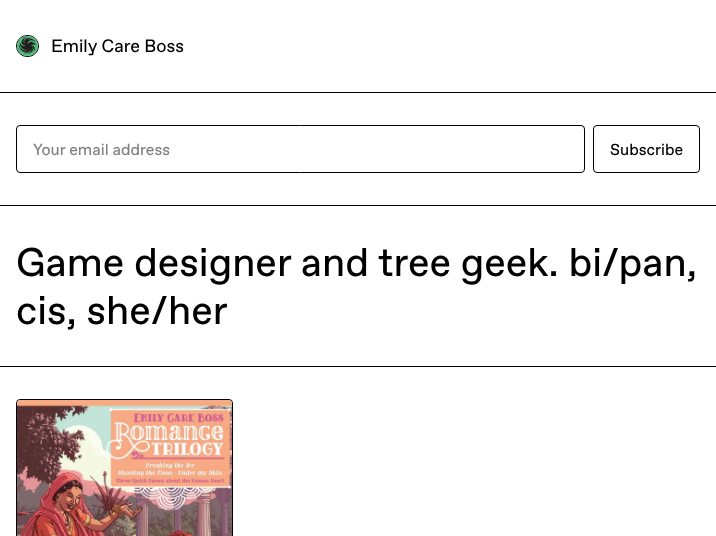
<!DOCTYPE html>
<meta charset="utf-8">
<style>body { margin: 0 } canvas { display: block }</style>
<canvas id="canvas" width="716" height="536"></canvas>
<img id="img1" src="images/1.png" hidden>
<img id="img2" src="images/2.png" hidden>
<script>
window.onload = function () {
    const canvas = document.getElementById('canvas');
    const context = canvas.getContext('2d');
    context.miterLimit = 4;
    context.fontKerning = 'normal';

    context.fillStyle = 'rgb(255, 255, 255)';
    context.fillRect(0, 0, 716, 536);
    context.fillStyle = 'rgb(0, 0, 0)';
    context.fillRect(0, 92, 716, 1);
    context.beginPath();
    context.roundRect(16.5, 35.5, 22, 21, 10.5);
    context.strokeStyle = 'rgb(0, 0, 0)';
    context.stroke();
    context.drawImage(document.getElementById('img1'), 17, 36, 21, 20);
    context.fillRect(0, 205, 716, 1);
    context.beginPath();
    context.roundRect(16.5, 125.5, 568, 47, 3.5);
    context.stroke();
    context.beginPath();
    context.roundRect(593.5, 125.5, 106, 47, 3.5);
    context.stroke();
    context.fillRect(0, 366, 716, 1);
    context.beginPath();
    context.roundRect(16.5, 399.5, 216, 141, 3.5);
    context.stroke();
    context.drawImage(document.getElementById('img2'), 17, 400, 215, 136);
    context.font = '18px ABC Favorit';
    context.fillText('Emily Care Boss', 51, 52);
    context.font = '16px ABC Favorit';
    context.fillStyle = 'rgb(128, 128, 128)';
    context.fillText('Your email address', 33, 155);
    context.fillStyle = 'rgb(0, 0, 0)';
    context.fillText('Subscribe', 610, 155);
    context.font = '40px ABC Favorit';
    context.fillText('Game designer and tree geek. bi/pan,', 16, 276);
    context.fillText('cis, she/her', 16, 324);
};
</script>
